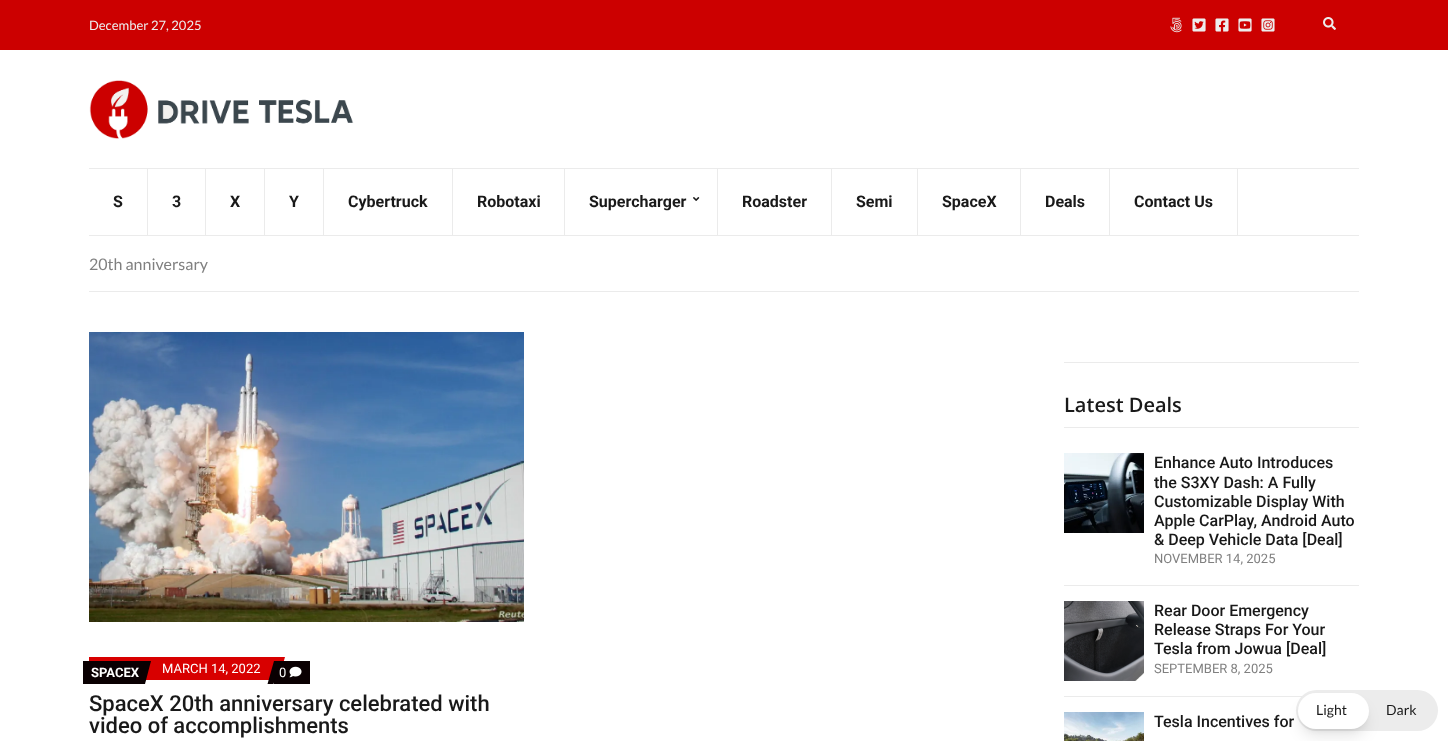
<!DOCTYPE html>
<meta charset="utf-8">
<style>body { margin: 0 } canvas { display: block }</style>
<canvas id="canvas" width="1448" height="741"></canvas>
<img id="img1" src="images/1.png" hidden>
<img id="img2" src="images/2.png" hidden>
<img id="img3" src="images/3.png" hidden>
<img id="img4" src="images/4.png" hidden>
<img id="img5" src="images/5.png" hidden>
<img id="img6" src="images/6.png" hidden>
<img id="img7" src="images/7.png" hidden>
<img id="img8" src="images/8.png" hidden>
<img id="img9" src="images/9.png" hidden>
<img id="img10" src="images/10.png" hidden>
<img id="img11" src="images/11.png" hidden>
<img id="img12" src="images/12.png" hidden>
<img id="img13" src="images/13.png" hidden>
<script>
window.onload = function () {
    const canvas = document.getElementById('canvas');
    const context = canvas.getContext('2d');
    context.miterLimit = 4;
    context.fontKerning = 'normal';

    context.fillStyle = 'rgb(255, 255, 255)';
    context.fillRect(0, 0, 1448, 741);
    context.fillStyle = 'rgb(204, 0, 0)';
    context.fillRect(0, 0, 1448, 50);
    context.drawImage(document.getElementById('img1'), 1170, 17, 12, 16);
    context.drawImage(document.getElementById('img2'), 1192, 18, 14, 14);
    context.drawImage(document.getElementById('img3'), 1215, 18, 14, 14);
    context.drawImage(document.getElementById('img4'), 1238, 18, 14, 14);
    context.drawImage(document.getElementById('img5'), 1261, 18, 14, 14);
    context.drawImage(document.getElementById('img6'), 1323, 17, 13, 13);
    context.drawImage(document.getElementById('img7'), 89, 80, 265, 59);
    context.fillStyle = 'rgb(235, 235, 235)';
    context.fillRect(89, 168, 1270, 1);
    context.fillRect(89, 235, 1270, 1);
    context.fillRect(147, 169, 1, 66);
    context.fillRect(205, 169, 1, 66);
    context.fillRect(264, 169, 1, 66);
    context.fillRect(323, 169, 1, 66);
    context.fillRect(452, 169, 1, 66);
    context.fillRect(564, 169, 1, 66);
    context.fillRect(717, 169, 1, 66);
    context.drawImage(document.getElementById('img8'), 693, 197, 7, 4);
    context.fillRect(831, 169, 1, 66);
    context.fillRect(917, 169, 1, 66);
    context.fillRect(1020, 169, 1, 66);
    context.fillRect(1109, 169, 1, 66);
    context.fillRect(1237, 169, 1, 66);
    context.fillRect(89, 291, 1270, 1);
    context.drawImage(document.getElementById('img9'), 89, 332, 435, 290);
    context.fillStyle = 'rgb(216, 0, 0)';
    context.fillRect(89, 657, 190, 23);
    context.fillStyle = 'rgb(10, 0, 2)';
    context.fillRect(83, 661, 62, 23);
    context.beginPath();
    context.moveTo(145, 661);
    context.lineTo(151, 661);
    context.lineTo(145, 684);
    context.lineTo(139, 684);
    context.closePath();
    context.fill();
    context.fillStyle = 'rgb(216, 0, 0)';
    context.beginPath();
    context.moveTo(279, 657);
    context.lineTo(285, 657);
    context.lineTo(278.5, 680);
    context.lineTo(272.5, 680);
    context.closePath();
    context.fill();
    context.fillStyle = 'rgb(10, 0, 2)';
    context.fillRect(274, 661, 36, 23);
    context.drawImage(document.getElementById('img10'), 289, 666, 13, 12);
    context.fillStyle = 'rgb(235, 235, 235)';
    context.fillRect(1064, 362, 295, 1);
    context.fillRect(1064, 427, 295, 1);
    context.fillRect(1064, 585, 295, 1);
    context.drawImage(document.getElementById('img11'), 1064, 453, 80, 80);
    context.fillRect(1064, 696, 238, 1);
    context.drawImage(document.getElementById('img12'), 1064, 601, 80, 80);
    context.drawImage(document.getElementById('img13'), 1064, 712, 80, 29);
    context.fillStyle = 'rgb(236, 236, 236)';
    context.beginPath();
    context.roundRect(1296, 690, 142, 41, 20.5);
    context.fill();
    context.fillStyle = 'rgba(0, 0, 0, 0.1)';
    context.filter = 'blur(3px)';
    context.beginPath();
    context.roundRect(1302, 701, 63, 28, 14);
    context.fill();
    context.filter = 'none';
    context.filter = 'blur(7.5px)';
    context.beginPath();
    context.roundRect(1301, 706, 65, 30, 15);
    context.fill();
    context.filter = 'none';
    context.fillStyle = 'rgb(255, 255, 255)';
    context.beginPath();
    context.roundRect(1298, 693, 71, 36, 18);
    context.fill();
    context.font = '13px Lato';
    context.fillStyle = 'rgb(237, 237, 237)';
    context.fillText('December 27, 2025', 89, 30);
    context.font = 'bold 16px Roboto';
    context.fillStyle = 'rgb(25, 25, 25)';
    context.fillText('S', 113, 207);
    context.fillText('3', 172, 207);
    context.fillText('X', 230, 207);
    context.fillText('Y', 289, 207);
    context.fillText('Cybertruck', 348, 207);
    context.fillText('Robotaxi', 477, 207);
    context.fillText('Supercharger', 589, 207);
    context.fillText('Roadster', 742, 207);
    context.fillText('Semi', 856, 207);
    context.fillText('SpaceX', 942, 207);
    context.fillText('Deals', 1045, 207);
    context.fillText('Contact Us', 1134, 207);
    context.font = '16px Lato';
    context.fillStyle = 'rgb(128, 128, 128)';
    context.fillText('20th anniversary', 89, 270);
    context.font = 'bold 13px Roboto';
    context.fillStyle = 'rgb(255, 255, 255)';
    context.fillText('SPACEX', 91, 677);
    context.font = '13px Roboto';
    context.fillText('MARCH 14, 2022', 162, 673);
    context.fillText('0', 279, 677);
    context.fillStyle = 'rgb(10, 0, 2)';
    context.beginPath();
    context.moveTo(274, 661);
    context.lineTo(280, 661);
    context.lineTo(273.5, 684);
    context.lineTo(267.5, 684);
    context.closePath();
    context.fill();
    context.font = '500 22px Roboto';
    context.fillStyle = 'rgb(25, 25, 25)';
    context.fillText('SpaceX 20th anniversary celebrated with', 89, 711);
    context.fillText('video of accomplishments', 89, 733);
    context.font = '600 20px Open Sans';
    context.fillText('Latest Deals', 1064, 412);
    context.font = '500 16px Roboto';
    context.fillText('Enhance Auto Introduces', 1154, 468);
    context.fillText('the S3XY Dash: A Fully', 1154, 488);
    context.fillText('Customizable Display With', 1154, 507);
    context.fillText('Apple CarPlay, Android Auto', 1154, 526);
    context.fillText('& Deep Vehicle Data [Deal]', 1154, 545);
    context.font = '13px Roboto';
    context.fillStyle = 'rgb(128, 128, 128)';
    context.fillText('NOVEMBER 14, 2025', 1154, 563);
    context.font = '500 16px Roboto';
    context.fillStyle = 'rgb(25, 25, 25)';
    context.fillText('Rear Door Emergency', 1154, 616);
    context.fillText('Release Straps For Your', 1154, 635);
    context.fillText('Tesla from Jowua [Deal]', 1154, 654);
    context.font = '13px Roboto';
    context.fillStyle = 'rgb(128, 128, 128)';
    context.fillText('SEPTEMBER 8, 2025', 1154, 673);
    context.font = '500 16px Roboto';
    context.fillStyle = 'rgb(25, 25, 25)';
    context.fillText('Tesla Incentives for', 1154, 727);
    context.font = '14px Lato';
    context.fillText('Light', 1316, 715);
    context.fillText('Dark', 1386, 715);
};
</script>
